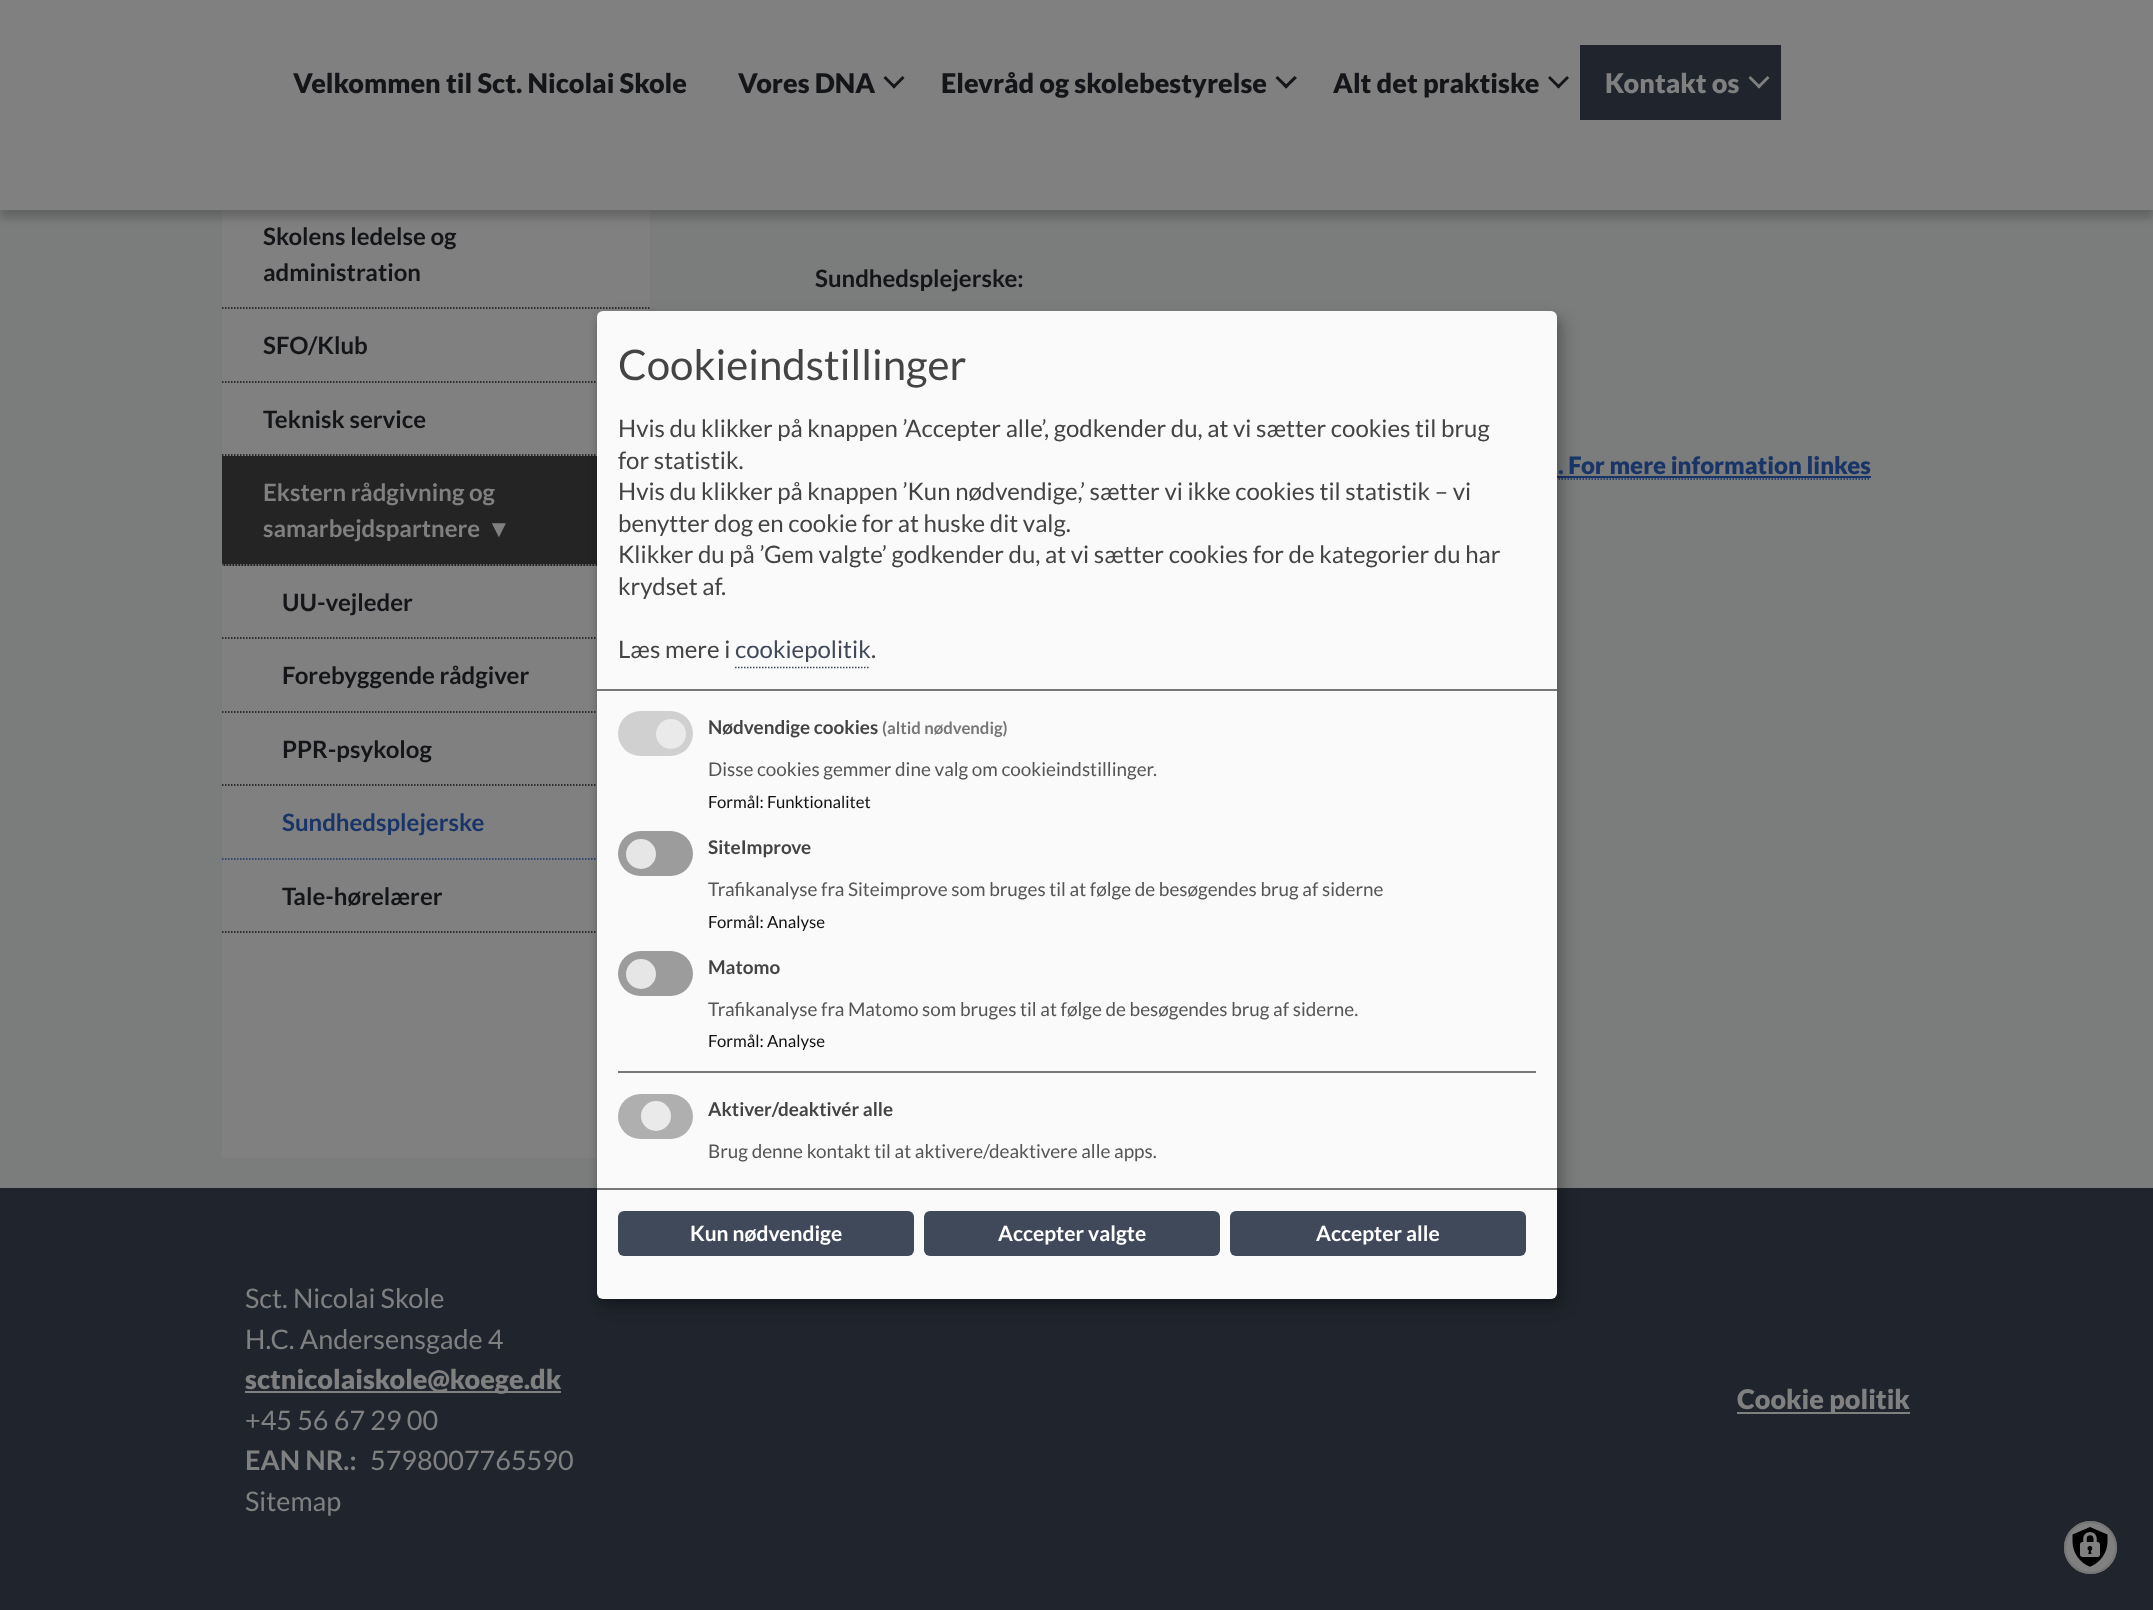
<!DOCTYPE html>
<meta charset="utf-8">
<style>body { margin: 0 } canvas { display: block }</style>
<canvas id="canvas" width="2153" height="1610"></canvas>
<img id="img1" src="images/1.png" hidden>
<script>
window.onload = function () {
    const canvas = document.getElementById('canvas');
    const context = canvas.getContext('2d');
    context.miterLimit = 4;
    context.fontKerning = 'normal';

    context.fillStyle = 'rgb(123, 124, 124)';
    context.fillRect(0, 0, 2153, 1610);
    context.fillStyle = 'rgb(128, 128, 128)';
    context.fillRect(222, 210, 428, 948);
    context.fillStyle = 'rgba(0, 0, 0, 0.2)';
    context.filter = 'blur(4px)';
    context.beginPath();
    context.rect(0, 8, 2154, 210);
    context.fill();
    context.filter = 'none';
    context.fillStyle = 'rgb(128, 128, 128)';
    context.fillRect(0, 0, 2153, 210);
    context.fillStyle = 'rgb(20, 21, 24)';
    context.beginPath();
    context.moveTo(904.5, 78);
    context.lineTo(894, 88.5);
    context.lineTo(892, 86.5);
    context.lineTo(902.5, 76);
    context.closePath();
    context.fill();
    context.beginPath();
    context.moveTo(896, 86.5);
    context.lineTo(894, 88.5);
    context.lineTo(883.5, 78);
    context.lineTo(885.5, 76);
    context.closePath();
    context.fill();
    context.beginPath();
    context.moveTo(1297, 78);
    context.lineTo(1286, 88.5);
    context.lineTo(1284, 86.5);
    context.lineTo(1294.5, 76);
    context.closePath();
    context.fill();
    context.beginPath();
    context.moveTo(1288.5, 86.5);
    context.lineTo(1286, 88.5);
    context.lineTo(1275.5, 78);
    context.lineTo(1277.5, 76);
    context.closePath();
    context.fill();
    context.beginPath();
    context.moveTo(1569, 78);
    context.lineTo(1558.5, 88.5);
    context.lineTo(1556.5, 86.5);
    context.lineTo(1567, 76);
    context.closePath();
    context.fill();
    context.beginPath();
    context.moveTo(1560.5, 86.5);
    context.lineTo(1558.5, 88.5);
    context.lineTo(1548, 78);
    context.lineTo(1550, 76);
    context.closePath();
    context.fill();
    context.fillStyle = 'rgb(32, 37, 45)';
    context.fillRect(1580, 45, 201, 75);
    context.fillStyle = 'rgb(128, 128, 128)';
    context.beginPath();
    context.moveTo(1769.5, 78);
    context.lineTo(1759, 88.5);
    context.lineTo(1757, 86.5);
    context.lineTo(1767.5, 76);
    context.closePath();
    context.fill();
    context.beginPath();
    context.moveTo(1761, 86.5);
    context.lineTo(1759, 88.5);
    context.lineTo(1748.5, 78);
    context.lineTo(1750.5, 76);
    context.closePath();
    context.fill();
    context.beginPath();
    context.moveTo(222, 308);
    context.lineTo(649.5, 308);
    context.strokeStyle = 'rgb(20, 21, 24)';
    context.lineWidth = 1.5;
    context.setLineDash([1.5, 1.5]);
    context.stroke();
    context.beginPath();
    context.moveTo(222, 382);
    context.lineTo(649.5, 382);
    context.stroke();
    context.beginPath();
    context.moveTo(222, 455);
    context.lineTo(649.5, 455);
    context.stroke();
    context.fillStyle = 'rgb(36, 36, 36)';
    context.fillRect(222, 456, 375, 110);
    context.beginPath();
    context.moveTo(222, 565);
    context.lineTo(649.5, 565);
    context.strokeStyle = 'rgb(128, 128, 128)';
    context.stroke();
    context.beginPath();
    context.moveTo(222, 638);
    context.lineTo(649.5, 638);
    context.strokeStyle = 'rgb(20, 21, 24)';
    context.stroke();
    context.beginPath();
    context.moveTo(222, 712);
    context.lineTo(649.5, 712);
    context.stroke();
    context.beginPath();
    context.moveTo(222, 785);
    context.lineTo(649.5, 785);
    context.stroke();
    context.beginPath();
    context.moveTo(222, 859);
    context.lineTo(649.5, 859);
    context.strokeStyle = 'rgb(25, 52, 103)';
    context.stroke();
    context.beginPath();
    context.moveTo(222, 932);
    context.lineTo(649.5, 932);
    context.strokeStyle = 'rgb(20, 21, 24)';
    context.stroke();
    context.beginPath();
    context.moveTo(814.5, 479);
    context.lineTo(1870.5, 479);
    context.strokeStyle = 'rgb(25, 52, 103)';
    context.stroke();
    context.fillStyle = 'rgb(25, 52, 103)';
    context.fillRect(1557, 476, 314, 2);
    context.fillStyle = 'rgb(32, 37, 45)';
    context.fillRect(0, 1188, 2153, 422);
    context.fillStyle = 'rgb(128, 128, 128)';
    context.fillRect(245, 1391, 316, 2);
    context.fillRect(1737, 1412, 173, 2);
    context.fillStyle = 'rgba(0, 0, 0, 0.19)';
    context.filter = 'blur(7.5px)';
    context.beginPath();
    context.roundRect(605, 318, 960, 989, 6);
    context.fill();
    context.filter = 'none';
    context.fillStyle = 'rgba(0, 0, 0, 0.2)';
    context.filter = 'blur(4.5px)';
    context.beginPath();
    context.roundRect(597, 317, 960, 988, 6);
    context.fill();
    context.filter = 'none';
    context.fillStyle = 'rgb(250, 250, 250)';
    context.beginPath();
    context.roundRect(597, 311, 960, 988, 6);
    context.fill();
    context.fillStyle = 'rgb(119, 119, 119)';
    context.fillRect(597, 689, 960, 2);
    context.beginPath();
    context.moveTo(735, 667.5);
    context.lineTo(870, 667.5);
    context.strokeStyle = 'rgb(64, 73, 89)';
    context.stroke();
    context.fillStyle = 'rgb(208, 208, 208)';
    context.beginPath();
    context.roundRect(618, 711, 75, 45, 22.5);
    context.fill();
    context.fillStyle = 'rgb(234, 234, 234)';
    context.beginPath();
    context.arc(671, 734, 15, 0, 2 * Math.PI);
    context.fill();
    context.fillStyle = 'rgb(156, 156, 156)';
    context.beginPath();
    context.roundRect(618, 831, 75, 45, 22.5);
    context.fill();
    context.fillStyle = 'rgb(230, 230, 230)';
    context.beginPath();
    context.arc(641, 854, 15, 0, 2 * Math.PI);
    context.fill();
    context.fillStyle = 'rgb(156, 156, 156)';
    context.beginPath();
    context.roundRect(618, 951, 75, 45, 22.5);
    context.fill();
    context.fillStyle = 'rgb(230, 230, 230)';
    context.beginPath();
    context.arc(641, 974, 15, 0, 2 * Math.PI);
    context.fill();
    context.fillStyle = 'rgb(119, 119, 119)';
    context.fillRect(618, 1071, 918, 2);
    context.fillStyle = 'rgb(175, 175, 175)';
    context.beginPath();
    context.roundRect(618, 1094, 75, 45, 22.5);
    context.fill();
    context.fillStyle = 'rgb(234, 234, 234)';
    context.beginPath();
    context.arc(656, 1116, 15, 0, 2 * Math.PI);
    context.fill();
    context.fillStyle = 'rgb(119, 119, 119)';
    context.fillRect(597, 1188, 960, 2);
    context.fillStyle = 'rgb(64, 73, 89)';
    context.beginPath();
    context.roundRect(618, 1211, 296, 45, 6);
    context.fill();
    context.beginPath();
    context.roundRect(924, 1211, 296, 45, 6);
    context.fill();
    context.beginPath();
    context.roundRect(1230, 1211, 296, 45, 6);
    context.fill();
    context.fillStyle = 'rgb(128, 128, 128)';
    context.beginPath();
    context.arc(2090.5, 1547.5, 26.5, 0, 2 * Math.PI);
    context.fill();
    context.drawImage(document.getElementById('img1'), 2072, 1527, 36, 40);
    context.beginPath();
    context.arc(2090.5, 1547.5, 25.5, 0, 2 * Math.PI);
    context.strokeStyle = 'rgb(117, 117, 117)';
    context.lineWidth = 2;
    context.setLineDash([]);
    context.stroke();
    context.font = '900 27px Lato';
    context.fillStyle = 'rgb(20, 21, 24)';
    context.fillText('Velkommen til Sct. Nicolai Skole', 293, 93);
    context.fillText('Vores DNA', 738, 93);
    context.fillText('Elevråd og skolebestyrelse', 941, 93);
    context.fillText('Alt det praktiske', 1333, 93);
    context.fillStyle = 'rgb(128, 128, 128)';
    context.fillText('Kontakt os', 1605, 93);
    context.font = 'bold 24px Lato';
    context.fillStyle = 'rgb(20, 21, 24)';
    context.fillText('Skolens ledelse og', 263, 245);
    context.fillText('administration', 263, 281);
    context.fillText('SFO/Klub', 263, 354);
    context.fillText('Teknisk service', 263, 428);
    context.fillStyle = 'rgb(128, 128, 128)';
    context.fillText('Ekstern rådgivning og', 263, 501);
    context.fillText('samarbejdspartnere', 263, 537);
    context.font = 'bold 24px Liberation Sans';
    context.fillText('▼', 487, 537);
    context.font = 'bold 24px Lato';
    context.fillStyle = 'rgb(20, 21, 24)';
    context.fillText('UU-vejleder', 282, 611);
    context.fillText('Forebyggende rådgiver', 282, 684);
    context.fillText('PPR-psykolog', 282, 758);
    context.fillStyle = 'rgb(25, 52, 103)';
    context.fillText('Sundhedsplejerske', 282, 831);
    context.fillStyle = 'rgb(20, 21, 24)';
    context.fillText('Tale-hørelærer', 282, 905);
    context.fillText('Sundhedsplejerske:', 815, 287);
    context.font = '900 24px Lato';
    context.fillStyle = 'rgb(25, 52, 103)';
    context.fillText('. For mere information linkes', 1558, 474);
    context.font = '27px Lato';
    context.fillStyle = 'rgb(128, 128, 128)';
    context.fillText('Sct. Nicolai Skole', 245, 1308);
    context.fillText('H.C. Andersensgade 4', 245, 1349);
    context.font = '900 27px Lato';
    context.fillText('sctnicolaiskole@koege.dk', 245, 1389);
    context.font = '27px Lato';
    context.fillText('+45 56 67 29 00', 245, 1430);
    context.font = 'bold 27px Lato';
    context.fillText('EAN NR.:', 245, 1470);
    context.font = '27px Lato';
    context.fillText('5798007765590', 370, 1470);
    context.fillText('Sitemap', 245, 1511);
    context.font = '900 27px Lato';
    context.fillText('Cookie politik', 1737, 1409);
    context.font = '42px Lato';
    context.fillStyle = 'rgb(68, 68, 68)';
    context.fillText('Cookieindstillinger', 618, 380);
    context.font = '24px Lato';
    context.fillText('Hvis du klikker på knappen ’Accepter alle’, godkender du, at vi sætter cookies til brug', 618, 437);
    context.fillText('for statistik.', 618, 469);
    context.fillText('Hvis du klikker på knappen ’Kun nødvendige,’ sætter vi ikke cookies til statistik – vi', 618, 500);
    context.fillText('benytter dog en cookie for at huske dit valg.', 618, 532);
    context.fillText('Klikker du på ’Gem valgte’ godkender du, at vi sætter cookies for de kategorier du har', 618, 563);
    context.fillText('krydset af.', 618, 595);
    context.fillText('Læs mere i', 618, 658);
    context.fillStyle = 'rgb(64, 73, 89)';
    context.fillText('cookiepolitik', 735, 658);
    context.fillStyle = 'rgb(68, 68, 68)';
    context.fillText('.', 871, 658);
    context.font = 'bold 18.9px Lato';
    context.fillText('Nødvendige cookies', 708, 734);
    context.font = 'bold 16.75px Lato';
    context.fillStyle = 'rgb(119, 119, 119)';
    context.fillText('(altid nødvendig)', 882, 734);
    context.font = '18.9px Lato';
    context.fillStyle = 'rgb(85, 85, 85)';
    context.fillText('Disse cookies gemmer dine valg om cookieindstillinger.', 708, 776);
    context.font = '16.75px Lato';
    context.fillStyle = 'rgb(17, 17, 17)';
    context.fillText('Formål: Funktionalitet', 708, 808);
    context.font = 'bold 18.9px Lato';
    context.fillStyle = 'rgb(68, 68, 68)';
    context.fillText('SiteImprove', 708, 854);
    context.font = '18.9px Lato';
    context.fillStyle = 'rgb(85, 85, 85)';
    context.fillText('Trafikanalyse fra Siteimprove som bruges til at følge de besøgendes brug af siderne', 708, 896);
    context.font = '16.75px Lato';
    context.fillStyle = 'rgb(17, 17, 17)';
    context.fillText('Formål: Analyse', 708, 928);
    context.font = 'bold 18.9px Lato';
    context.fillStyle = 'rgb(68, 68, 68)';
    context.fillText('Matomo', 708, 974);
    context.font = '18.9px Lato';
    context.fillStyle = 'rgb(85, 85, 85)';
    context.fillText('Trafikanalyse fra Matomo som bruges til at følge de besøgendes brug af siderne.', 708, 1016);
    context.font = '16.75px Lato';
    context.fillStyle = 'rgb(17, 17, 17)';
    context.fillText('Formål: Analyse', 708, 1047);
    context.font = 'bold 18.9px Lato';
    context.fillStyle = 'rgb(68, 68, 68)';
    context.fillText('Aktiver/deaktivér alle', 708, 1116);
    context.font = '18.9px Lato';
    context.fillStyle = 'rgb(85, 85, 85)';
    context.fillText('Brug denne kontakt til at aktivere/deaktivere alle apps.', 708, 1158);
    context.font = 'bold 21px Lato';
    context.fillStyle = 'rgb(255, 255, 255)';
    context.fillText('Kun nødvendige', 690, 1241);
    context.fillText('Accepter valgte', 998, 1241);
    context.fillText('Accepter alle', 1316, 1241);
};
</script>
